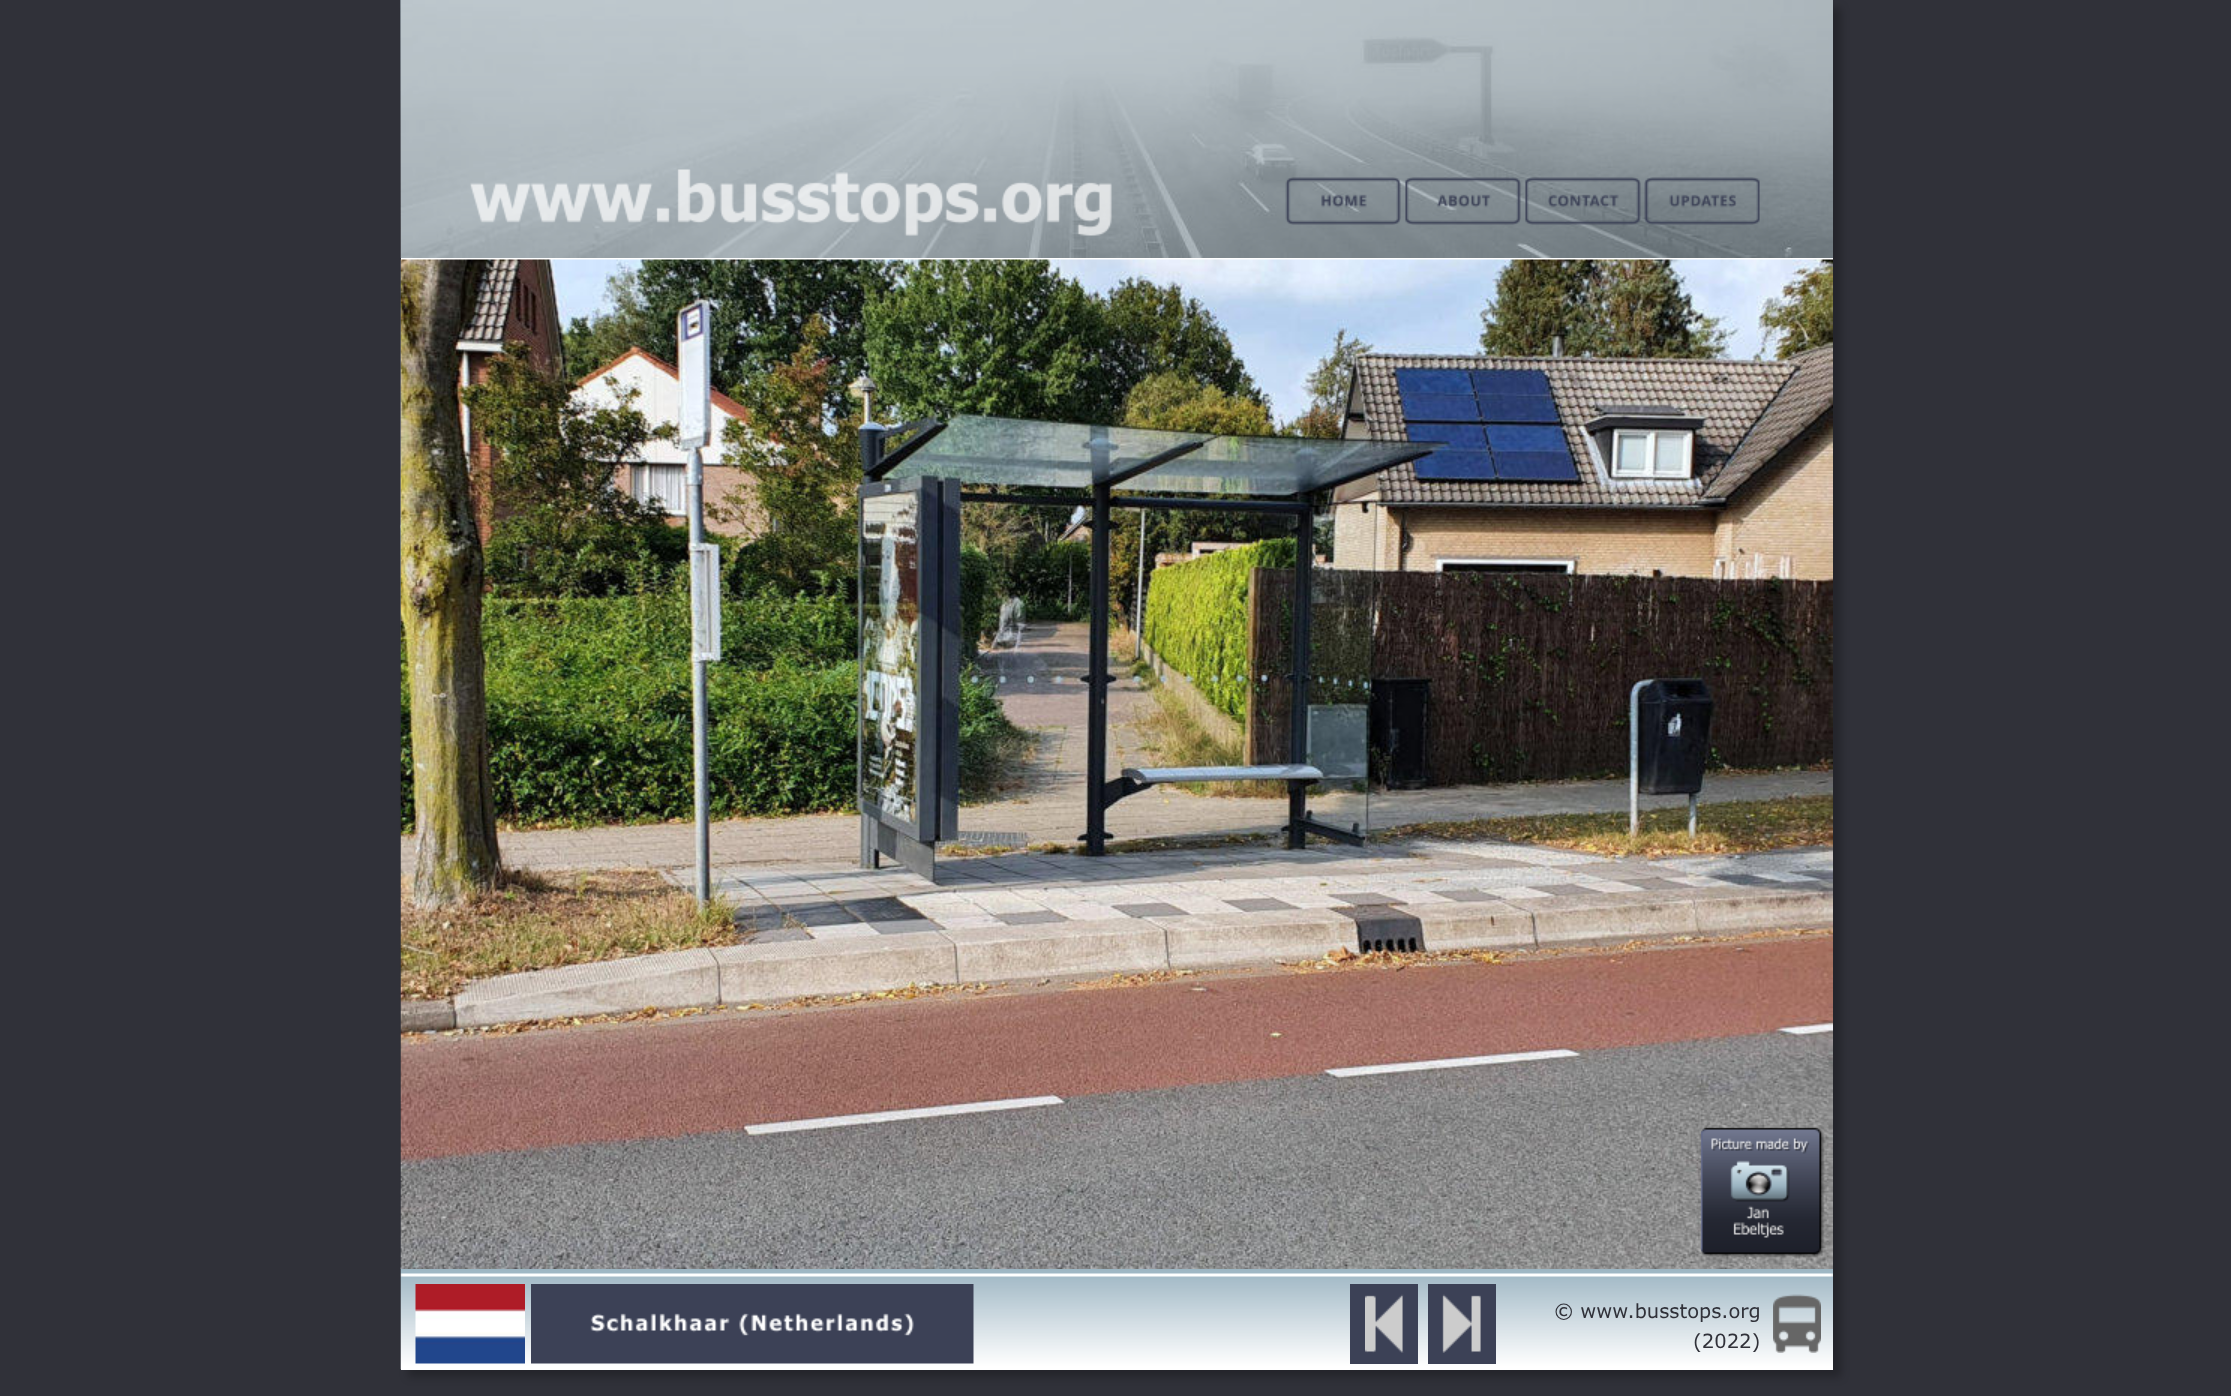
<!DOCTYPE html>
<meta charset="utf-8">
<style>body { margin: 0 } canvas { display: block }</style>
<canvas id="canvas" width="2231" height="1396"></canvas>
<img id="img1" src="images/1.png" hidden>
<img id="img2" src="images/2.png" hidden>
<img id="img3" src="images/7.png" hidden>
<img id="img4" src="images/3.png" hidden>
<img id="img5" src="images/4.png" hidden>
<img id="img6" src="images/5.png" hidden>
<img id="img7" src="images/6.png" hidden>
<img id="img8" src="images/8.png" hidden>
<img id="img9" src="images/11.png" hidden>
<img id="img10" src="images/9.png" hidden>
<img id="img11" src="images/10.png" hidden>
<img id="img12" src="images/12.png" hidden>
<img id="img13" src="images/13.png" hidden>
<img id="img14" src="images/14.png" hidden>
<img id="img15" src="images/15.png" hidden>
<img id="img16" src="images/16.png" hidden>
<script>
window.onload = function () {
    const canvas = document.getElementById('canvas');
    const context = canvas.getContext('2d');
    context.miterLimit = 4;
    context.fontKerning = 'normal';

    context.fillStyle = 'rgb(48, 49, 57)';
    context.fillRect(0, 0, 2231, 1396);
    context.fillStyle = 'rgba(0, 0, 0, 0.25)';
    context.filter = 'blur(4.5px)';
    context.beginPath();
    context.rect(408, 8, 1433, 1369);
    context.fill();
    context.filter = 'none';
    context.fillStyle = 'rgb(255, 255, 255)';
    context.fillRect(401, 258, 1432, 1112);
    context.drawImage(document.getElementById('img1'), 400, 0, 1, 228);
    context.drawImage(document.getElementById('img2'), 400, 261, 1, 408);
    context.drawImage(document.getElementById('img3'), 400, 0, 1433, 258);
    context.drawImage(document.getElementById('img4'), 1285, 177, 116, 48);
    context.drawImage(document.getElementById('img5'), 1405, 177, 116, 48);
    context.drawImage(document.getElementById('img6'), 1525, 177, 116, 48);
    context.drawImage(document.getElementById('img7'), 1644, 177, 116, 48);
    context.drawImage(document.getElementById('img8'), 470, 169, 642, 67);
    context.drawImage(document.getElementById('img9'), 400, 1267, 1433, 103);
    context.drawImage(document.getElementById('img10'), 400, 259, 1433, 1010);
    context.drawImage(document.getElementById('img11'), 1700, 1127, 125, 131);
    context.drawImage(document.getElementById('img12'), 415, 1284, 110, 80);
    context.drawImage(document.getElementById('img13'), 531, 1284, 443, 80);
    context.fillStyle = 'rgb(60, 65, 86)';
    context.fillRect(1350, 1284, 68, 80);
    context.fillRect(1428, 1284, 68, 80);
    context.drawImage(document.getElementById('img14'), 1365, 1294, 39, 59);
    context.drawImage(document.getElementById('img15'), 1442, 1294, 39, 59);
    context.drawImage(document.getElementById('img16'), 1773, 1294, 48, 59);
    context.font = '19.5px Verdana';
    context.fillStyle = 'rgb(48, 49, 57)';
    context.fillText('© www.busstops.org', 1554, 1318);
    context.fillText('(2022)', 1693, 1348);
};
</script>
